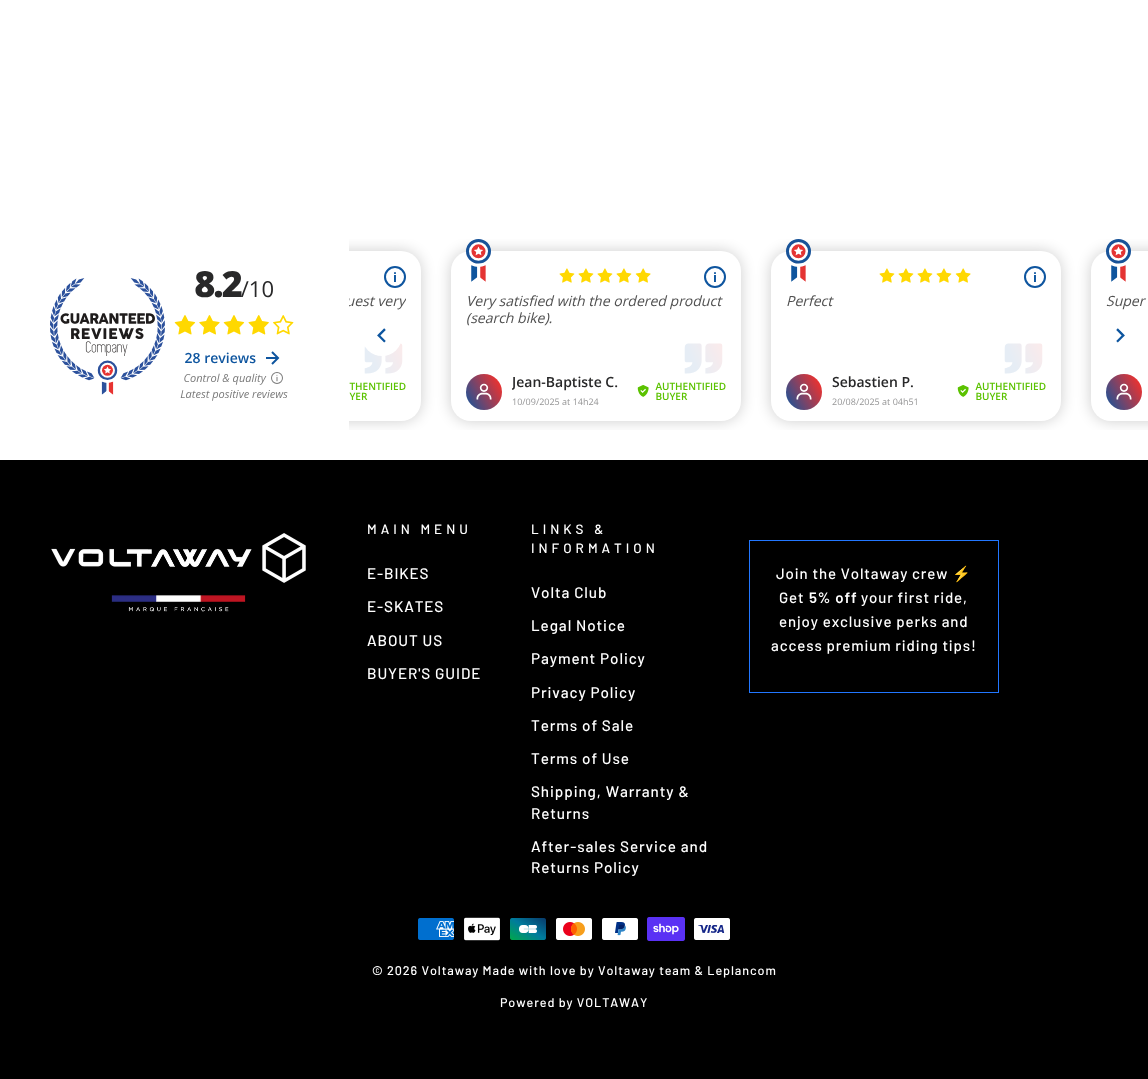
<!DOCTYPE html>
<meta charset="utf-8">
<style>body { margin: 0 } canvas { display: block }</style>
<canvas id="canvas" width="1148" height="1079"></canvas>
<img id="img1" src="images/1.png" hidden>
<img id="img2" src="images/2.png" hidden>
<img id="img3" src="images/3.png" hidden>
<img id="img4" src="images/4.png" hidden>
<img id="img5" src="images/5.png" hidden>
<img id="img6" src="images/6.png" hidden>
<img id="img7" src="images/7.png" hidden>
<img id="img8" src="images/8.png" hidden>
<img id="img9" src="images/9.png" hidden>
<script>
window.onload = function () {
    const canvas = document.getElementById('canvas');
    const context = canvas.getContext('2d');
    context.miterLimit = 4;
    context.fontKerning = 'none';

    context.fillStyle = 'rgb(255, 255, 255)';
    context.fillRect(0, 0, 1148, 1079);
    context.drawImage(document.getElementById('img1'), 50, 239, 1098, 191);
    context.fillStyle = 'rgb(0, 0, 0)';
    context.fillRect(0, 460, 1148, 619);
    context.drawImage(document.getElementById('img2'), 51, 533, 255, 79);
    context.strokeStyle = 'rgb(34, 119, 255)';
    context.strokeRect(749.5, 540.5, 249, 152);
    context.drawImage(document.getElementById('img3'), 418, 918, 36, 22);
    context.drawImage(document.getElementById('img4'), 464, 917, 36, 24);
    context.drawImage(document.getElementById('img5'), 510, 918, 36, 22);
    context.drawImage(document.getElementById('img6'), 556, 918, 36, 22);
    context.drawImage(document.getElementById('img7'), 602, 918, 36, 22);
    context.drawImage(document.getElementById('img8'), 647, 917, 38, 24);
    context.drawImage(document.getElementById('img9'), 694, 918, 36, 22);
    context.letterSpacing = '4px';
    context.font = '500 13.5px Barlow';
    context.fillStyle = 'rgb(255, 255, 255)';
    context.fillText('MAIN MENU', 367, 534);
    context.letterSpacing = '0.9px';
    context.font = '500 15.25px Barlow';
    context.fillText('E-BIKES', 367, 579);
    context.fillText('E-SKATES', 367, 612);
    context.fillText('ABOUT US', 367, 646);
    context.fillText('BUYER\'S GUIDE', 367, 679);
    context.letterSpacing = '4px';
    context.font = '500 13.5px Barlow';
    context.fillText('LINKS &', 531, 534);
    context.fillText('INFORMATION', 531, 553);
    context.letterSpacing = '0.9px';
    context.font = '500 15.25px Barlow';
    context.fillText('Volta Club', 531, 598);
    context.fillText('Legal Notice', 531, 631);
    context.fillText('Payment Policy', 531, 664);
    context.fillText('Privacy Policy', 531, 698);
    context.fillText('Terms of Sale', 531, 731);
    context.fillText('Terms of Use', 531, 764);
    context.fillText('Shipping, Warranty &', 531, 797);
    context.fillText('Returns', 531, 819);
    context.fillText('After-sales Service and', 531, 852);
    context.fillText('Returns Policy', 531, 873);
    context.font = '500 15px Barlow';
    context.fillText('Join the Voltaway crew', 776, 579);
    context.font = '15px Noto Color Emoji';
    context.fillText('⚡', 952, 579);
    context.font = '500 15px Barlow';
    context.fillText('Get', 779, 603);
    context.font = '600 15px Barlow';
    context.fillText('5% off', 809, 603);
    context.font = '500 15px Barlow';
    context.fillText('your first ride,', 861, 603);
    context.fillText('enjoy exclusive perks and', 779, 627);
    context.fillText('access premium riding tips!', 771, 651);
    context.font = '500 12.6px Barlow';
    context.fillText('© 2026 Voltaway Made with love by Voltaway team & Leplancom', 372, 975);
    context.fillText('Powered by VOLTAWAY', 500, 1007);
};
</script>
